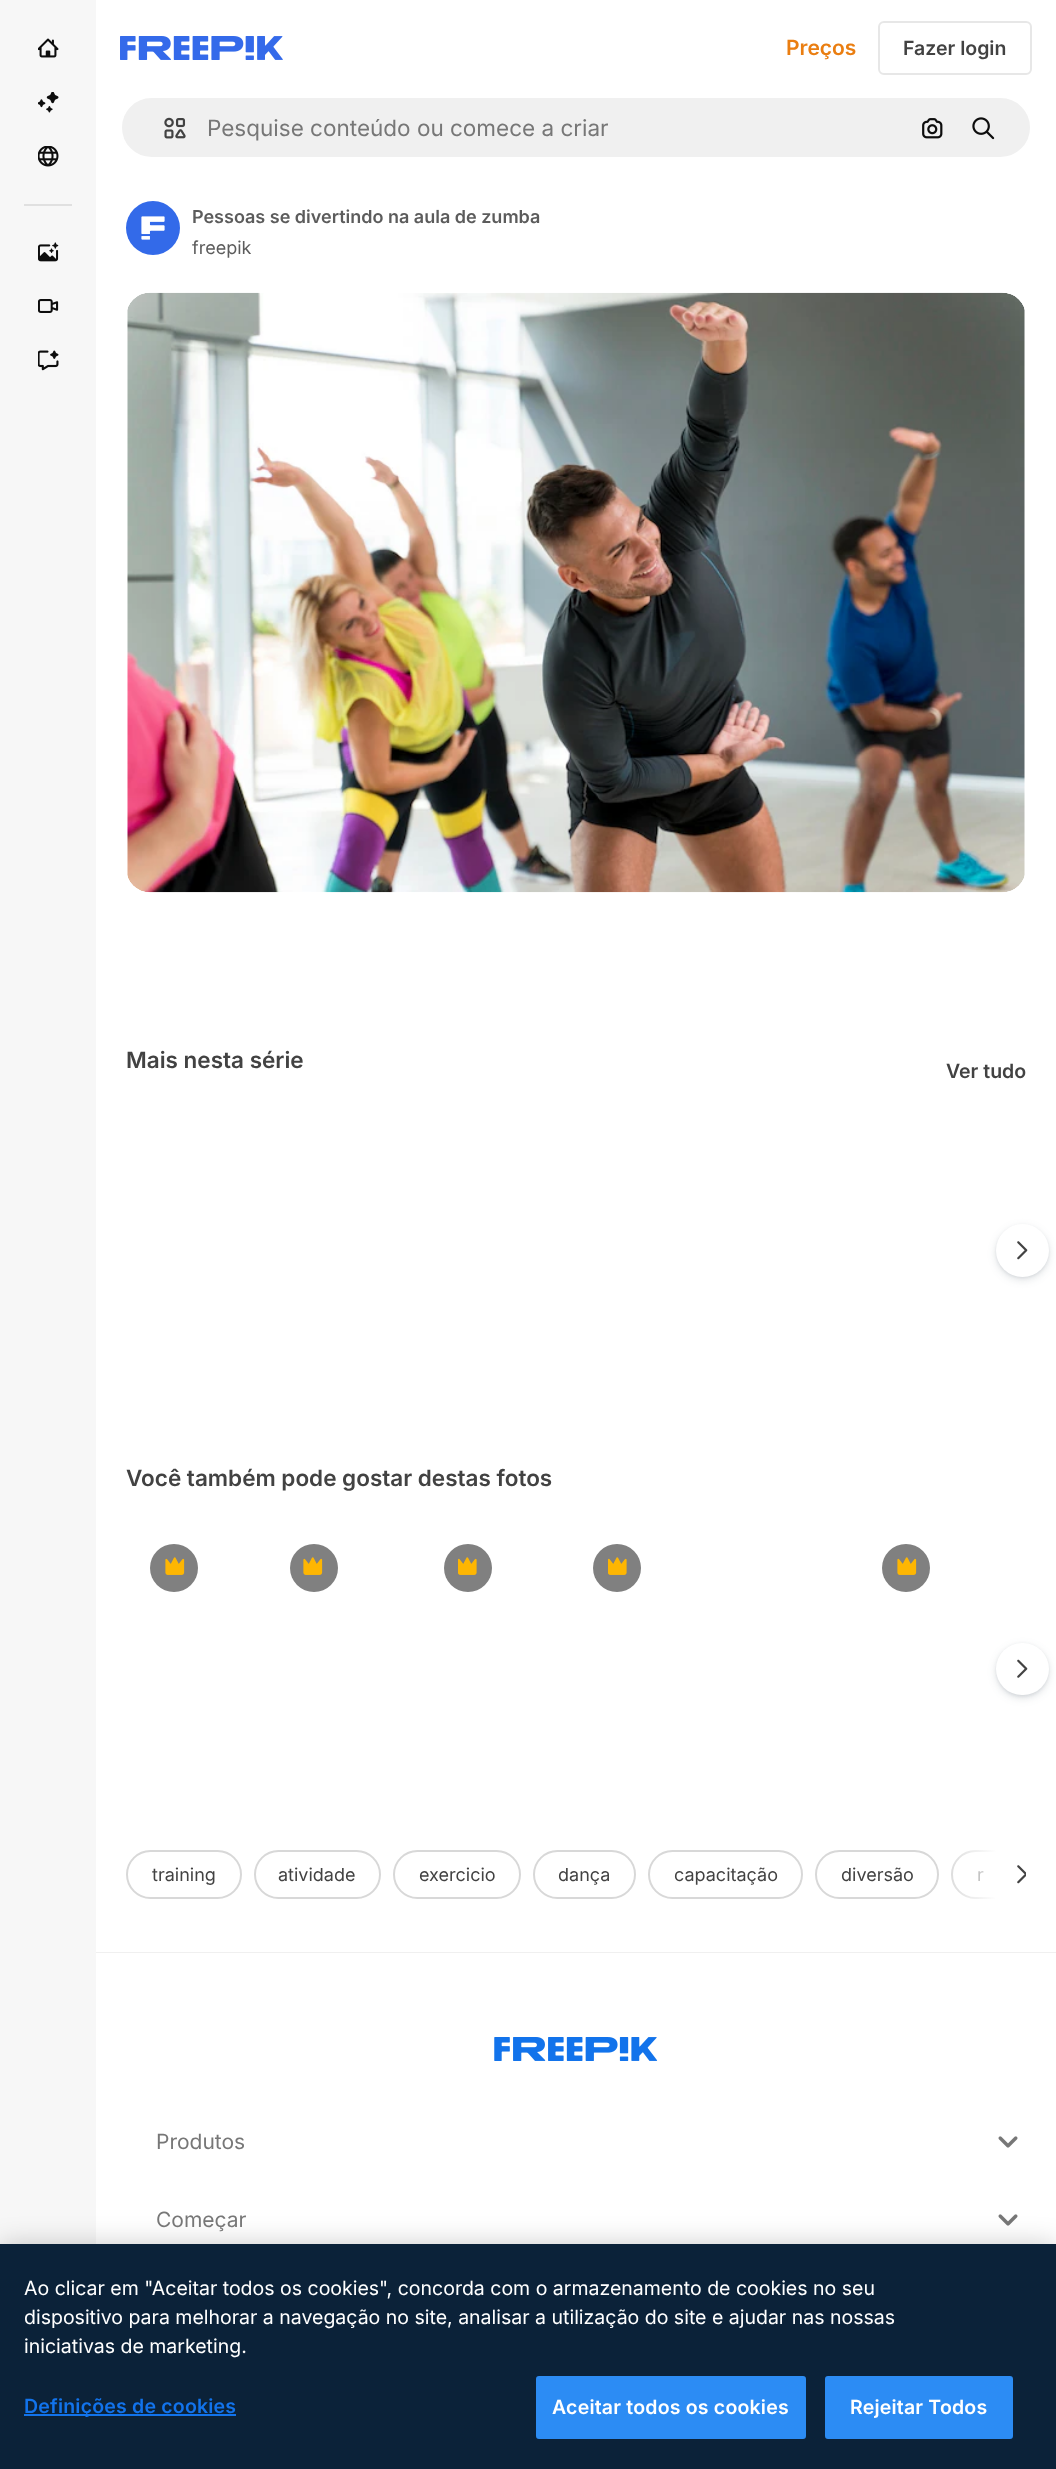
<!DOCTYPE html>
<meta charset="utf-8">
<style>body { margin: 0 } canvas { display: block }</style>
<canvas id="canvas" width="1056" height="2469"></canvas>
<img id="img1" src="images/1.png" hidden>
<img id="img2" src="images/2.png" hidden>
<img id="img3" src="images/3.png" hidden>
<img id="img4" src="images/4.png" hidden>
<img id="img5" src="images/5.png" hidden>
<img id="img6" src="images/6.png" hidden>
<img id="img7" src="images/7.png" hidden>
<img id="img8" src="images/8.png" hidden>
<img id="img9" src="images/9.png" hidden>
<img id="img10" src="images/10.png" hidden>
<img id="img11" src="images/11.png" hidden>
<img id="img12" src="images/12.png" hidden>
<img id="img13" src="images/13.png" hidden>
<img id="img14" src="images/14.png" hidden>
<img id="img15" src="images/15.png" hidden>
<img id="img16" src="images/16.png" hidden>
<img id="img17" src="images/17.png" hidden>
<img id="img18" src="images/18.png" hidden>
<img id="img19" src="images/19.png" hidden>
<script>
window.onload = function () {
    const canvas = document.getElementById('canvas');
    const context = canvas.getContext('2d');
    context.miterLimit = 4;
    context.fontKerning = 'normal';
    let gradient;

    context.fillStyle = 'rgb(255, 255, 255)';
    context.fillRect(0, 0, 1056, 2469);
    context.fillStyle = 'rgb(247, 247, 247)';
    context.fillRect(0, 0, 96, 2244);
    context.drawImage(document.getElementById('img1'), 38, 38, 21, 20);
    context.drawImage(document.getElementById('img2'), 38, 92, 21, 21);
    context.drawImage(document.getElementById('img3'), 38, 146, 21, 21);
    context.fillStyle = 'rgb(224, 224, 224)';
    context.fillRect(24, 204, 48, 2);
    context.drawImage(document.getElementById('img4'), 38, 242, 21, 20);
    context.drawImage(document.getElementById('img5'), 38, 299, 21, 14);
    context.drawImage(document.getElementById('img6'), 38, 350, 21, 21);
    context.drawImage(document.getElementById('img7'), 120, 36, 163, 24);
    context.beginPath();
    context.roundRect(879, 22, 152, 52, 5);
    context.strokeStyle = 'rgb(231, 231, 231)';
    context.lineWidth = 2;
    context.stroke();
    context.fillStyle = 'rgb(240, 240, 240)';
    context.beginPath();
    context.roundRect(121, 97, 910, 61, 30.5);
    context.fill();
    context.strokeStyle = 'rgb(255, 255, 255)';
    context.stroke();
    context.drawImage(document.getElementById('img8'), 164, 117, 22, 22);
    context.drawImage(document.getElementById('img9'), 922, 118, 21, 21);
    context.drawImage(document.getElementById('img10'), 972, 117, 23, 23);
    context.drawImage(document.getElementById('img11'), 126, 201, 54, 54);
    context.drawImage(document.getElementById('img12'), 127, 292, 898, 601);
    context.fillStyle = 'rgba(55, 73, 87, 0.15)';
    context.filter = 'blur(4px)';
    context.beginPath();
    context.roundRect(996, 1227, 53, 53, 26.5);
    context.fill();
    context.filter = 'none';
    context.fillStyle = 'rgba(55, 73, 87, 0.1)';
    context.filter = 'blur(1.5px)';
    context.beginPath();
    context.roundRect(996, 1226, 53, 52, 26);
    context.fill();
    context.filter = 'none';
    context.fillStyle = 'rgb(255, 255, 255)';
    context.beginPath();
    context.arc(1022.5, 1250.5, 26.5, 0, 2 * Math.PI);
    context.fill();
    context.drawImage(document.getElementById('img13'), 1017, 1241, 11, 19);
    context.fillStyle = 'rgb(128, 128, 128)';
    context.beginPath();
    context.arc(174, 1568, 24, 0, 2 * Math.PI);
    context.fill();
    context.drawImage(document.getElementById('img14'), 165, 1557, 20, 18);
    context.beginPath();
    context.arc(314, 1568, 24, 0, 2 * Math.PI);
    context.fill();
    context.drawImage(document.getElementById('img14'), 303, 1557, 20, 18);
    context.beginPath();
    context.arc(468, 1568, 24, 0, 2 * Math.PI);
    context.fill();
    context.drawImage(document.getElementById('img15'), 458, 1557, 19, 18);
    context.beginPath();
    context.arc(617, 1568, 24, 0, 2 * Math.PI);
    context.fill();
    context.drawImage(document.getElementById('img15'), 608, 1557, 19, 18);
    context.beginPath();
    context.arc(906, 1568, 24, 0, 2 * Math.PI);
    context.fill();
    context.drawImage(document.getElementById('img14'), 897, 1557, 20, 18);
    context.fillStyle = 'rgba(55, 73, 87, 0.15)';
    context.filter = 'blur(4px)';
    context.beginPath();
    context.roundRect(996, 1646, 53, 52, 26);
    context.fill();
    context.filter = 'none';
    context.fillStyle = 'rgba(55, 73, 87, 0.1)';
    context.filter = 'blur(1.5px)';
    context.beginPath();
    context.roundRect(996, 1644, 53, 53, 26.5);
    context.fill();
    context.filter = 'none';
    context.fillStyle = 'rgb(255, 255, 255)';
    context.beginPath();
    context.roundRect(996, 1643, 53, 52, 26);
    context.fill();
    context.drawImage(document.getElementById('img16'), 1017, 1659, 11, 19);
    context.beginPath();
    context.roundRect(127, 1851, 114, 47, 23.5);
    context.strokeStyle = 'rgb(216, 216, 216)';
    context.stroke();
    context.beginPath();
    context.roundRect(255, 1851, 125, 47, 23.5);
    context.stroke();
    context.beginPath();
    context.roundRect(394, 1851, 126, 47, 23.5);
    context.stroke();
    context.beginPath();
    context.roundRect(534, 1851, 101, 47, 23.5);
    context.stroke();
    context.beginPath();
    context.roundRect(649, 1851, 153, 47, 23.5);
    context.stroke();
    context.beginPath();
    context.roundRect(816, 1851, 122, 47, 23.5);
    context.stroke();
    context.save();
    context.beginPath();
    context.rect(126, 1850, 900, 49);
    context.clip();
    context.beginPath();
    context.roundRect(952, 1851, 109, 47, 23.5);
    context.stroke();
    context.restore();
    context.fillRect(996, 1850, 30, 49);
    context.drawImage(document.getElementById('img17'), 1017, 1865, 9, 19);
    context.fillStyle = 'rgb(240, 240, 240)';
    context.fillRect(96, 1952, 960, 1);
    context.drawImage(document.getElementById('img18'), 494, 2037, 164, 24);
    context.drawImage(document.getElementById('img19'), 998, 2136, 20, 12);
    context.drawImage(document.getElementById('img19'), 998, 2214, 20, 12);
    context.fillStyle = 'rgba(0, 0, 0, 0.2)';
    context.filter = 'blur(13.5px)';
    context.beginPath();
    context.rect(0, 2244, 1056, 225);
    context.fill();
    context.filter = 'none';
    context.fillStyle = 'rgb(11, 34, 57)';
    context.fillRect(0, 2244, 1056, 225);
    context.fillStyle = 'rgb(18, 115, 235)';
    context.fillRect(24, 2414, 212, 2);
    context.fillStyle = 'rgb(44, 140, 244)';
    context.beginPath();
    context.roundRect(537, 2377, 268, 61, 2);
    context.fill();
    context.strokeStyle = 'rgb(44, 140, 244)';
    context.stroke();
    context.beginPath();
    context.roundRect(826, 2377, 186, 61, 2);
    context.fill();
    context.stroke();
    context.font = '600 21px Inter';
    context.fillStyle = 'rgb(234, 126, 17)';
    context.fillText('Preços', 786, 55);
    context.font = '600 19.5px Inter';
    context.fillStyle = 'rgb(66, 66, 66)';
    context.fillText('Fazer login', 903, 55);
    context.font = '22.5px Inter';
    context.fillStyle = 'rgb(119, 119, 119)';
    context.fillText('Pesquise conteúdo ou comece a criar', 207, 136);
    context.font = '600 18px Inter';
    context.fillStyle = 'rgb(92, 92, 92)';
    context.fillText('Pessoas se divertindo na aula de zumba', 192, 223);
    context.font = '18px Inter';
    context.fillText('freepik', 192, 254);
    context.font = '600 22.5px Inter';
    context.fillStyle = 'rgb(66, 66, 66)';
    context.fillText('Mais nesta série', 126, 1068);
    context.font = '600 19.5px Inter';
    context.fillText('Ver tudo', 946, 1078);
    context.font = '600 22.5px Inter';
    context.fillText('Você também pode gostar destas fotos', 126, 1486);
    context.font = '18px Inter';
    context.fillText('training', 152, 1881);
    context.fillText('atividade', 278, 1881);
    context.fillText('exercicio', 419, 1881);
    context.fillText('dança', 558, 1881);
    context.fillText('capacitação', 674, 1881);
    context.fillText('diversão', 841, 1881);
    context.fillText('r', 977, 1881);
    gradient = context.createLinearGradient(996, 1874, 944, 1874);
    gradient.addColorStop(0, 'rgb(255, 255, 255)');
    gradient.addColorStop(1, 'rgba(255, 255, 255, 0)');
    context.fillStyle = gradient;
    context.fillRect(951, 1850, 45, 49);
    context.font = '21px Inter';
    context.fillStyle = 'rgb(119, 119, 119)';
    context.fillText('Produtos', 156, 2149);
    context.fillText('Começar', 156, 2227);
    context.font = '19.5px Inter';
    context.fillStyle = 'rgb(255, 255, 255)';
    context.fillText('Ao clicar em "Aceitar todos os cookies", concorda com o armazenamento de cookies no seu', 24, 2295);
    context.fillText('dispositivo para melhorar a navegação no site, analisar a utilização do site e ajudar nas nossas', 24, 2324);
    context.fillText('iniciativas de marketing.', 24, 2353);
    context.letterSpacing = '0.2px';
    context.font = '600 19.5px Inter';
    context.fillStyle = 'rgb(18, 115, 235)';
    context.fillText('Definições de cookies', 24, 2413);
    context.fillStyle = 'rgb(255, 255, 255)';
    context.fillText('Aceitar todos os cookies', 552, 2414);
    context.fillText('Rejeitar Todos', 850, 2414);
};
</script>
